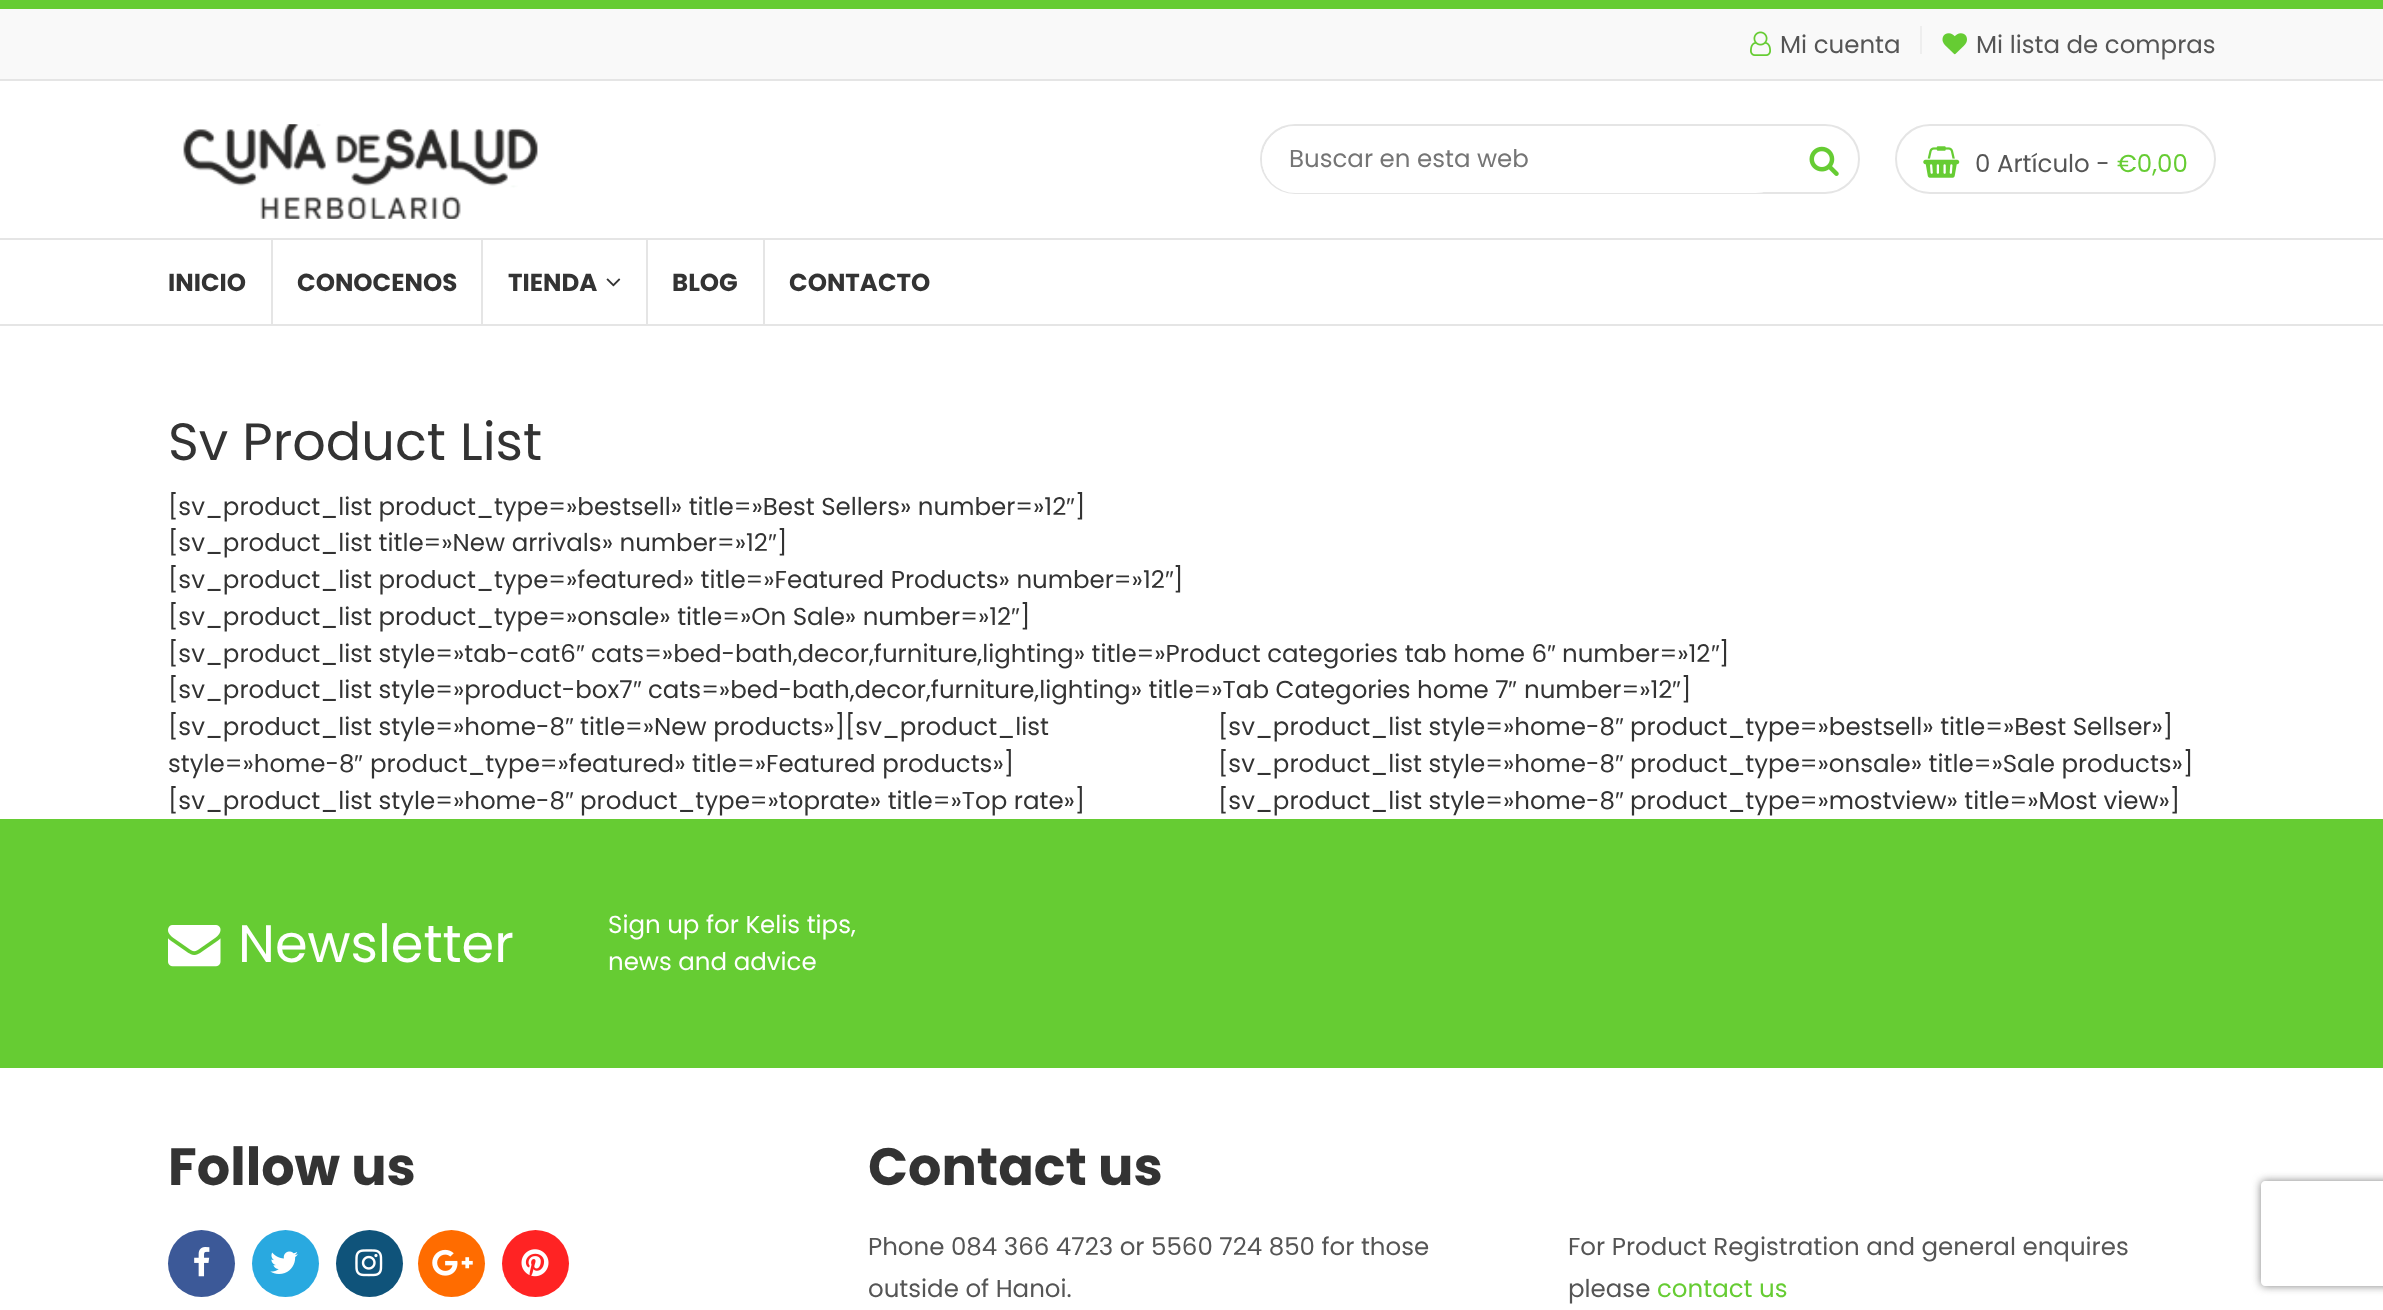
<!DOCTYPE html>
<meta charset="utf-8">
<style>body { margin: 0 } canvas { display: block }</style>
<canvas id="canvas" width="2383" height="1310"></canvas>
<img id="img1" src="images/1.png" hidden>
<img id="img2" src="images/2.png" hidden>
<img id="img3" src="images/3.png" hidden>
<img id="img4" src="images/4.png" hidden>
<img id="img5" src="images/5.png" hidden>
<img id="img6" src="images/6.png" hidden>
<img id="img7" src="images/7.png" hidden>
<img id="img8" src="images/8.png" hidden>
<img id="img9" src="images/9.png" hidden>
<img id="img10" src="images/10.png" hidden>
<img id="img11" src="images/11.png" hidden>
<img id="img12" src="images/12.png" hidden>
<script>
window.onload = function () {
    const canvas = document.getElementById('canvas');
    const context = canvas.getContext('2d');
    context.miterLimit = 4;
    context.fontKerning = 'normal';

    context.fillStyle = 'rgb(255, 255, 255)';
    context.fillRect(0, 0, 2383, 1310);
    context.fillStyle = 'rgb(249, 249, 249)';
    context.fillRect(0, 9, 2383, 70);
    context.fillStyle = 'rgb(102, 204, 51)';
    context.fillRect(0, 0, 2383, 9);
    context.drawImage(document.getElementById('img1'), 1750, 31, 21, 25);
    context.fillStyle = 'rgb(238, 238, 238)';
    context.fillRect(1920, 26, 2, 28);
    context.drawImage(document.getElementById('img2'), 1942, 33, 25, 22);
    context.fillStyle = 'rgb(229, 229, 229)';
    context.fillRect(0, 79, 2383, 2);
    context.drawImage(document.getElementById('img3'), 183, 124, 355, 95);
    context.beginPath();
    context.roundRect(1261, 125, 598, 68, 34);
    context.strokeStyle = 'rgb(229, 229, 229)';
    context.lineWidth = 2;
    context.stroke();
    context.fillStyle = 'rgb(255, 255, 255)';
    context.beginPath();
    context.roundRect(1262, 126, 527, 67, 33.5);
    context.fill();
    context.drawImage(document.getElementById('img4'), 1809, 146, 30, 30);
    context.beginPath();
    context.roundRect(1896, 125, 319, 68, 34);
    context.stroke();
    context.drawImage(document.getElementById('img5'), 1923, 146, 37, 32);
    context.fillStyle = 'rgb(229, 229, 229)';
    context.fillRect(0, 238, 2383, 2);
    context.fillRect(0, 324, 2383, 2);
    context.fillRect(271, 240, 2, 84);
    context.fillRect(481, 240, 2, 84);
    context.drawImage(document.getElementById('img6'), 606, 278, 15, 9);
    context.fillRect(646, 240, 2, 84);
    context.fillRect(763, 240, 2, 84);
    context.fillStyle = 'rgb(102, 204, 51)';
    context.fillRect(0, 819, 2383, 249);
    context.drawImage(document.getElementById('img7'), 168, 925, 53, 42);
    context.fillStyle = 'rgb(60, 89, 152)';
    context.beginPath();
    context.arc(201.5, 1263.5, 33.5, 0, 2 * Math.PI);
    context.fill();
    context.drawImage(document.getElementById('img8'), 194, 1247, 16, 30);
    context.fillStyle = 'rgb(41, 169, 224)';
    context.beginPath();
    context.arc(285.5, 1263.5, 33.5, 0, 2 * Math.PI);
    context.fill();
    context.drawImage(document.getElementById('img9'), 270, 1251, 28, 23);
    context.fillStyle = 'rgb(15, 83, 122)';
    context.beginPath();
    context.arc(369.5, 1263.5, 33.5, 0, 2 * Math.PI);
    context.fill();
    context.drawImage(document.getElementById('img10'), 355, 1249, 28, 28);
    context.fillStyle = 'rgb(255, 108, 0)';
    context.beginPath();
    context.arc(451.5, 1263.5, 33.5, 0, 2 * Math.PI);
    context.fill();
    context.drawImage(document.getElementById('img11'), 432, 1249, 41, 27);
    context.fillStyle = 'rgb(255, 35, 35)';
    context.beginPath();
    context.arc(535.5, 1263.5, 33.5, 0, 2 * Math.PI);
    context.fill();
    context.drawImage(document.getElementById('img12'), 521, 1249, 28, 28);
    context.save();
    context.beginPath();
    context.moveTo(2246, 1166);
    context.lineTo(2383, 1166);
    context.lineTo(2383, 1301);
    context.lineTo(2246, 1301);
    context.closePath();
    context.moveTo(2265, 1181);
    context.lineTo(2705, 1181);
    context.bezierCurveTo(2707, 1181, 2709, 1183, 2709, 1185);
    context.lineTo(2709, 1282);
    context.bezierCurveTo(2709, 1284, 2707, 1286, 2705, 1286);
    context.lineTo(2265, 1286);
    context.bezierCurveTo(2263, 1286, 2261, 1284, 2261, 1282);
    context.lineTo(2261, 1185);
    context.bezierCurveTo(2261, 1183, 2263, 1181, 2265, 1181);
    context.closePath();
    context.clip('evenodd');
    context.fillStyle = 'rgb(128, 128, 128)';
    context.filter = 'blur(4.5px)';
    context.beginPath();
    context.roundRect(2261, 1181, 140, 105, 4);
    context.fill();
    context.filter = 'none';
    context.restore();
    context.font = '24.5px Poppins';
    context.fillStyle = 'rgb(85, 85, 85)';
    context.fillText('Mi cuenta', 1780, 53);
    context.fillText('Mi lista de compras', 1976, 53);
    context.fillStyle = 'rgb(117, 117, 117)';
    context.fillText('Buscar en esta web', 1289, 167);
    context.fillStyle = 'rgb(85, 85, 85)';
    context.fillText('0 Artículo -', 1975, 172);
    context.fillStyle = 'rgb(102, 204, 51)';
    context.fillText('€0,00', 2117, 172);
    context.font = 'bold 24.5px Poppins';
    context.fillStyle = 'rgb(51, 51, 51)';
    context.fillText('INICIO', 168, 291);
    context.fillText('CONOCENOS', 297, 291);
    context.fillText('TIENDA', 508, 291);
    context.fillText('BLOG', 672, 291);
    context.fillText('CONTACTO', 789, 291);
    context.font = '52.5px Poppins';
    context.fillText('Sv Product List', 168, 460);
    context.font = '24.5px Poppins';
    context.fillText('[sv_product_list product_type=»bestsell» title=»Best Sellers» number=»12', 168, 515);
    context.font = '24.5px Liberation Sans';
    context.fillText('″', 1066, 515);
    context.font = '24.5px Poppins';
    context.fillText(']', 1075, 515);
    context.fillText('[sv_product_list title=»New arrivals» number=»12', 168, 551);
    context.font = '24.5px Liberation Sans';
    context.fillText('″', 768, 551);
    context.font = '24.5px Poppins';
    context.fillText(']', 777, 551);
    context.fillText('[sv_product_list product_type=»featured» title=»Featured Products» number=»12', 168, 588);
    context.font = '24.5px Liberation Sans';
    context.fillText('″', 1165, 588);
    context.font = '24.5px Poppins';
    context.fillText(']', 1173, 588);
    context.fillText('[sv_product_list product_type=»onsale» title=»On Sale» number=»12', 168, 625);
    context.font = '24.5px Liberation Sans';
    context.fillText('″', 1011, 625);
    context.font = '24.5px Poppins';
    context.fillText(']', 1020, 625);
    context.fillText('[sv_product_list style=»tab-cat6', 168, 662);
    context.font = '24.5px Liberation Sans';
    context.fillText('″', 576, 662);
    context.font = '24.5px Poppins';
    context.fillText('cats=»bed-bath,decor,furniture,lighting» title=»Product categories tab home 6', 591, 662);
    context.font = '24.5px Liberation Sans';
    context.fillText('″', 1547, 662);
    context.font = '24.5px Poppins';
    context.fillText('number=»12', 1562, 662);
    context.font = '24.5px Liberation Sans';
    context.fillText('″', 1711, 662);
    context.font = '24.5px Poppins';
    context.fillText(']', 1719, 662);
    context.fillText('[sv_product_list style=»product-box7', 168, 698);
    context.font = '24.5px Liberation Sans';
    context.fillText('″', 633, 698);
    context.font = '24.5px Poppins';
    context.fillText('cats=»bed-bath,decor,furniture,lighting» title=»Tab Categories home 7', 648, 698);
    context.font = '24.5px Liberation Sans';
    context.fillText('″', 1508, 698);
    context.font = '24.5px Poppins';
    context.fillText('number=»12', 1524, 698);
    context.font = '24.5px Liberation Sans';
    context.fillText('″', 1672, 698);
    context.font = '24.5px Poppins';
    context.fillText(']', 1681, 698);
    context.fillText('[sv_product_list style=»home-8', 168, 735);
    context.font = '24.5px Liberation Sans';
    context.fillText('″', 565, 735);
    context.font = '24.5px Poppins';
    context.fillText('title=»New products»][sv_product_list', 580, 735);
    context.fillText('style=»home-8', 168, 772);
    context.font = '24.5px Liberation Sans';
    context.fillText('″', 354, 772);
    context.font = '24.5px Poppins';
    context.fillText('product_type=»featured» title=»Featured products»]', 370, 772);
    context.fillText('[sv_product_list style=»home-8', 168, 809);
    context.font = '24.5px Liberation Sans';
    context.fillText('″', 565, 809);
    context.font = '24.5px Poppins';
    context.fillText('product_type=»toprate» title=»Top rate»]', 580, 809);
    context.fillText('[sv_product_list style=»home-8', 1218, 735);
    context.font = '24.5px Liberation Sans';
    context.fillText('″', 1615, 735);
    context.font = '24.5px Poppins';
    context.fillText('product_type=»bestsell» title=»Best Sellser»]', 1630, 735);
    context.fillText('[sv_product_list style=»home-8', 1218, 772);
    context.font = '24.5px Liberation Sans';
    context.fillText('″', 1615, 772);
    context.font = '24.5px Poppins';
    context.fillText('product_type=»onsale» title=»Sale products»]', 1630, 772);
    context.fillText('[sv_product_list style=»home-8', 1218, 809);
    context.font = '24.5px Liberation Sans';
    context.fillText('″', 1615, 809);
    context.font = '24.5px Poppins';
    context.fillText('product_type=»mostview» title=»Most view»]', 1630, 809);
    context.font = '52.5px Poppins';
    context.fillStyle = 'rgb(255, 255, 255)';
    context.fillText('Newsletter', 238, 962);
    context.font = '24.5px Poppins';
    context.fillText('Sign up for Kelis tips,', 608, 933);
    context.fillText('news and advice', 608, 970);
    context.font = 'bold 52.5px Poppins';
    context.fillStyle = 'rgb(51, 51, 51)';
    context.fillText('Follow us', 168, 1185);
    context.fillText('Contact us', 868, 1185);
    context.font = '24.5px Poppins';
    context.fillStyle = 'rgb(85, 85, 85)';
    context.fillText('Phone 084 366 4723 or 5560 724 850 for those', 868, 1255);
    context.fillText('outside of Hanoi.', 868, 1297);
    context.fillText('For Product Registration and general enquires', 1568, 1255);
    context.fillText('please', 1568, 1297);
    context.fillStyle = 'rgb(102, 204, 51)';
    context.fillText('contact us', 1657, 1297);
};
</script>
